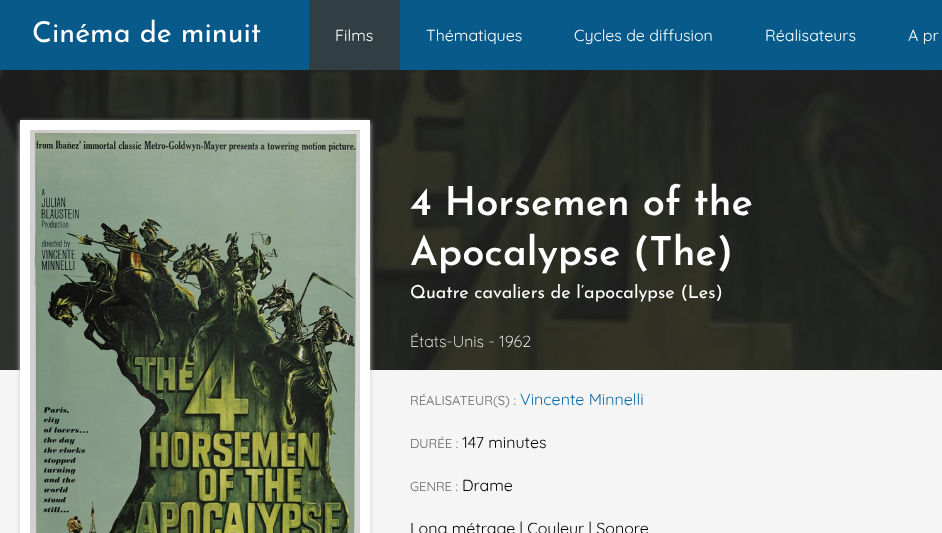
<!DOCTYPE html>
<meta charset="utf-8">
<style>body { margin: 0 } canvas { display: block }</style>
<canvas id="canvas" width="942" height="533"></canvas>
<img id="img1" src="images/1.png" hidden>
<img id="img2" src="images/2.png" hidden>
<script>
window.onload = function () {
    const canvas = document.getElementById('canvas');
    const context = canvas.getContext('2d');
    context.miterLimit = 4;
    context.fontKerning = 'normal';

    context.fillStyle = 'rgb(245, 245, 245)';
    context.fillRect(0, 0, 942, 533);
    context.fillStyle = 'rgb(7, 90, 138)';
    context.fillRect(0, 0, 942, 70);
    context.fillStyle = 'rgb(49, 62, 68)';
    context.fillRect(309, 0, 91, 70);
    context.drawImage(document.getElementById('img1'), 0, 70, 942, 300);
    context.fillStyle = 'rgb(207, 207, 207)';
    context.filter = 'blur(2.5px)';
    context.beginPath();
    context.rect(20, 122, 350, 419);
    context.fill();
    context.filter = 'none';
    context.fillStyle = 'rgb(255, 255, 255)';
    context.fillRect(20, 120, 350, 413);
    context.drawImage(document.getElementById('img2'), 30, 130, 330, 403);
    context.font = '28.75px Josefin Sans';
    context.fillText('Cinéma de minuit', 32, 42);
    context.font = '16px Quicksand';
    context.fillText('Films', 335, 41);
    context.fillText('Thématiques', 426, 41);
    context.fillText('Cycles de diffusion', 574, 41);
    context.fillText('Réalisateurs', 765, 41);
    context.fillText('A pr', 908, 41);
    context.font = '600 40px Josefin Sans';
    context.fillText('4 Horsemen of the', 410, 215);
    context.fillText('Apocalypse (The)', 410, 265);
    context.font = '18px Josefin Sans';
    context.fillText('Quatre cavaliers de l’apocalypse (Les)', 410, 298);
    context.font = '300 16px Quicksand';
    context.fillText('États-Unis - 1962', 410, 347);
    context.font = '13px Quicksand';
    context.fillStyle = 'rgb(102, 102, 102)';
    context.fillText('RÉALISATEUR(S) :', 410, 405);
    context.font = '16px Quicksand';
    context.fillStyle = 'rgb(11, 108, 164)';
    context.fillText('Vincente Minnelli', 520, 405);
    context.font = '13px Quicksand';
    context.fillStyle = 'rgb(102, 102, 102)';
    context.fillText('DURÉE :', 410, 448);
    context.font = '16px Quicksand';
    context.fillStyle = 'rgb(0, 0, 0)';
    context.fillText('147 minutes', 462, 448);
    context.font = '13px Quicksand';
    context.fillStyle = 'rgb(102, 102, 102)';
    context.fillText('GENRE :', 410, 491);
    context.font = '16px Quicksand';
    context.fillStyle = 'rgb(0, 0, 0)';
    context.fillText('Drame', 462, 491);
    context.fillText('Long métrage | Couleur | Sonore', 410, 534);
};
</script>
